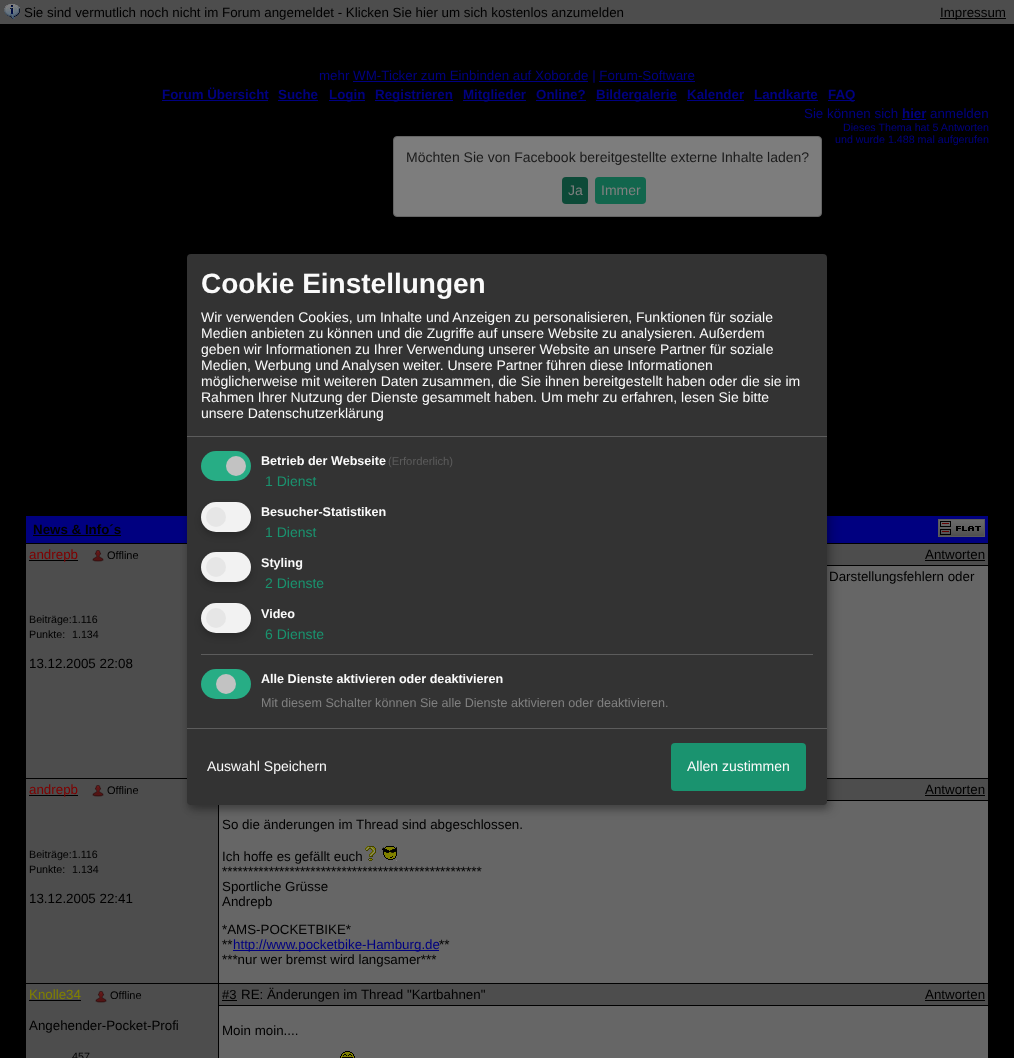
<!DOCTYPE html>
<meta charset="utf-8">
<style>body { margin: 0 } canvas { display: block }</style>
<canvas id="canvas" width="1014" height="1058"></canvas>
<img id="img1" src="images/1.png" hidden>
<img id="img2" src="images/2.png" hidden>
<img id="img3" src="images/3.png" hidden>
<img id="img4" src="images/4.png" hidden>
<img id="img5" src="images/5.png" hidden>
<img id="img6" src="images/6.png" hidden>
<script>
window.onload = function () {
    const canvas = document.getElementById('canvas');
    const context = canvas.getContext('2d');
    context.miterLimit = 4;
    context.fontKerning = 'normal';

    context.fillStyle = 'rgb(0, 0, 0)';
    context.fillRect(0, 0, 1014, 1058);
    context.fillStyle = 'rgb(77, 77, 77)';
    context.fillRect(0, 0, 1014, 24);
    context.drawImage(document.getElementById('img1'), 4, 4, 16, 15);
    context.fillStyle = 'rgb(0, 0, 0)';
    context.fillRect(940, 18, 66, 1);
    context.fillStyle = 'rgb(0, 0, 128)';
    context.fillRect(353, 81, 235, 1);
    context.fillRect(599, 81, 96, 1);
    context.fillRect(162, 100, 106, 1);
    context.fillRect(278, 100, 40, 1);
    context.fillRect(329, 100, 36, 1);
    context.fillRect(375, 100, 78, 1);
    context.fillRect(463, 100, 63, 1);
    context.fillRect(536, 100, 50, 1);
    context.fillRect(596, 100, 81, 1);
    context.fillRect(687, 100, 57, 1);
    context.fillRect(754, 100, 64, 1);
    context.fillRect(828, 100, 27, 1);
    context.fillRect(902, 119, 24, 1);
    context.fillStyle = 'rgb(125, 125, 125)';
    context.beginPath();
    context.roundRect(393.5, 136.5, 428, 80, 3.5);
    context.fill();
    context.strokeStyle = 'rgb(100, 100, 100)';
    context.stroke();
    context.fillStyle = 'rgb(13, 74, 56)';
    context.beginPath();
    context.roundRect(562, 177, 26, 27, 4);
    context.fill();
    context.fillStyle = 'rgb(18, 102, 77)';
    context.beginPath();
    context.roundRect(595, 177, 51, 27, 4);
    context.fill();
    context.fillStyle = 'rgb(0, 0, 128)';
    context.fillRect(26, 516, 962, 27);
    context.fillStyle = 'rgb(0, 0, 0)';
    context.fillRect(33, 535, 88, 1);
    context.drawImage(document.getElementById('img2'), 938, 519, 47, 18);
    context.fillStyle = 'rgb(77, 77, 77)';
    context.fillRect(26, 544, 161, 234);
    context.fillStyle = 'rgb(0, 0, 0)';
    context.fillRect(29, 560, 49, 1);
    context.drawImage(document.getElementById('img3'), 92, 550, 12, 12);
    context.fillStyle = 'rgb(77, 77, 77)';
    context.fillRect(827, 544, 161, 21);
    context.fillStyle = 'rgb(0, 0, 0)';
    context.fillRect(925, 560, 60, 1);
    context.fillStyle = 'rgb(102, 102, 102)';
    context.fillRect(827, 566, 161, 212);
    context.fillStyle = 'rgb(77, 77, 77)';
    context.fillRect(26, 779, 192, 204);
    context.fillStyle = 'rgb(0, 0, 0)';
    context.fillRect(29, 795, 49, 1);
    context.drawImage(document.getElementById('img3'), 92, 785, 12, 12);
    context.fillStyle = 'rgb(77, 77, 77)';
    context.fillRect(827, 779, 161, 21);
    context.fillStyle = 'rgb(0, 0, 0)';
    context.fillRect(925, 795, 60, 1);
    context.fillStyle = 'rgb(102, 102, 102)';
    context.fillRect(219, 801, 769, 182);
    context.drawImage(document.getElementById('img4'), 365, 846, 11, 15);
    context.drawImage(document.getElementById('img5'), 382, 846, 15, 15);
    context.fillStyle = 'rgb(0, 0, 128)';
    context.fillRect(233, 950, 206, 1);
    context.fillStyle = 'rgb(77, 77, 77)';
    context.fillRect(26, 984, 192, 74);
    context.fillStyle = 'rgb(0, 0, 0)';
    context.fillRect(29, 1000, 52, 1);
    context.drawImage(document.getElementById('img3'), 95, 991, 12, 12);
    context.fillStyle = 'rgb(77, 77, 77)';
    context.fillRect(219, 984, 769, 21);
    context.fillStyle = 'rgb(0, 0, 0)';
    context.fillRect(222, 1000, 15, 1);
    context.fillRect(925, 1000, 60, 1);
    context.fillStyle = 'rgb(102, 102, 102)';
    context.fillRect(219, 1006, 769, 52);
    context.drawImage(document.getElementById('img6'), 340, 1051, 15, 7);
    context.fillStyle = 'rgba(0, 0, 0, 0.19)';
    context.filter = 'blur(5px)';
    context.beginPath();
    context.roundRect(192, 259, 640, 551, 4);
    context.fill();
    context.filter = 'none';
    context.fillStyle = 'rgba(0, 0, 0, 0.2)';
    context.filter = 'blur(3px)';
    context.beginPath();
    context.roundRect(187, 258, 640, 551, 4);
    context.fill();
    context.filter = 'none';
    context.fillStyle = 'rgb(51, 51, 51)';
    context.beginPath();
    context.roundRect(187, 254, 640, 551, 4);
    context.fill();
    context.fillStyle = 'rgb(92, 92, 92)';
    context.fillRect(187, 436, 640, 1);
    context.fillStyle = 'rgb(39, 173, 133)';
    context.beginPath();
    context.roundRect(201, 451, 50, 30, 15);
    context.fill();
    context.fillStyle = 'rgb(194, 194, 194)';
    context.beginPath();
    context.arc(236, 466, 10, 0, 2 * Math.PI);
    context.fill();
    context.fillStyle = 'rgba(0, 0, 0, 0.2)';
    context.filter = 'blur(3px)';
    context.beginPath();
    context.roundRect(201, 506, 50, 30, 15);
    context.fill();
    context.filter = 'none';
    context.fillStyle = 'rgb(242, 242, 242)';
    context.beginPath();
    context.roundRect(201, 502, 50, 30, 15);
    context.fill();
    context.fillStyle = 'rgb(230, 230, 230)';
    context.beginPath();
    context.arc(216, 517, 10, 0, 2 * Math.PI);
    context.fill();
    context.fillStyle = 'rgba(0, 0, 0, 0.2)';
    context.filter = 'blur(3px)';
    context.beginPath();
    context.roundRect(201, 556, 50, 30, 15);
    context.fill();
    context.filter = 'none';
    context.fillStyle = 'rgb(242, 242, 242)';
    context.beginPath();
    context.roundRect(201, 552, 50, 30, 15);
    context.fill();
    context.fillStyle = 'rgb(230, 230, 230)';
    context.beginPath();
    context.arc(216, 567, 10, 0, 2 * Math.PI);
    context.fill();
    context.fillStyle = 'rgba(0, 0, 0, 0.2)';
    context.filter = 'blur(3px)';
    context.beginPath();
    context.roundRect(201, 607, 50, 30, 15);
    context.fill();
    context.filter = 'none';
    context.fillStyle = 'rgb(242, 242, 242)';
    context.beginPath();
    context.roundRect(201, 603, 50, 30, 15);
    context.fill();
    context.fillStyle = 'rgb(230, 230, 230)';
    context.beginPath();
    context.arc(216, 618, 10, 0, 2 * Math.PI);
    context.fill();
    context.fillStyle = 'rgb(92, 92, 92)';
    context.fillRect(201, 654, 612, 1);
    context.fillStyle = 'rgb(39, 173, 133)';
    context.beginPath();
    context.roundRect(201, 669, 50, 30, 15);
    context.fill();
    context.fillStyle = 'rgb(194, 194, 194)';
    context.beginPath();
    context.arc(226, 684, 10, 0, 2 * Math.PI);
    context.fill();
    context.fillStyle = 'rgb(92, 92, 92)';
    context.fillRect(187, 728, 640, 1);
    context.fillStyle = 'rgb(26, 147, 111)';
    context.beginPath();
    context.roundRect(671, 743, 135, 48, 4);
    context.fill();
    context.font = '13.35px Liberation Sans';
    context.fillStyle = 'rgb(0, 0, 0)';
    context.fillText('Sie sind vermutlich noch nicht im Forum angemeldet - Klicken Sie hier um sich kostenlos anzumelden', 24, 17);
    context.fillText('Impressum', 940, 17);
    context.fillStyle = 'rgb(0, 0, 128)';
    context.fillText('mehr WM-Ticker zum Einbinden auf Xobor.de | Forum-Software', 319, 80);
    context.font = 'bold 13.35px Liberation Sans';
    context.fillText('Forum Übersicht', 162, 99);
    context.fillText('Suche', 278, 99);
    context.fillText('Login', 329, 99);
    context.fillText('Registrieren', 375, 99);
    context.fillText('Mitglieder', 463, 99);
    context.fillText('Online?', 536, 99);
    context.fillText('Bildergalerie', 596, 99);
    context.fillText('Kalender', 687, 99);
    context.fillText('Landkarte', 754, 99);
    context.fillText('FAQ', 828, 99);
    context.font = '13.35px Liberation Sans';
    context.fillText('Sie können sich', 804, 118);
    context.font = 'bold 13.35px Liberation Sans';
    context.fillText('hier', 902, 118);
    context.font = '13.35px Liberation Sans';
    context.fillText('anmelden', 930, 118);
    context.font = '10.7px Liberation Sans';
    context.fillText('Dieses Thema hat 5 Antworten', 843, 131);
    context.fillText('und wurde 1.488 mal aufgerufen', 835, 143);
    context.font = '14px Liberation Sans';
    context.fillStyle = 'rgb(26, 26, 26)';
    context.fillText('Möchten Sie von Facebook bereitgestellte externe Inhalte laden?', 406, 162);
    context.fillStyle = 'rgb(128, 128, 128)';
    context.fillText('Ja', 568, 195);
    context.fillText('Immer', 601, 195);
    context.font = 'bold 13.35px Liberation Sans';
    context.fillStyle = 'rgb(0, 0, 0)';
    context.fillText('News & Info´s', 33, 534);
    context.font = '13.35px Liberation Sans';
    context.fillStyle = 'rgb(127, 0, 0)';
    context.fillText('andrepb', 29, 559);
    context.font = '11px Liberation Sans';
    context.fillStyle = 'rgb(0, 0, 0)';
    context.fillText('Offline', 107, 559);
    context.font = '10.7px Liberation Sans';
    context.fillText('Beiträge:1.116', 29, 623);
    context.fillText('Punkte:', 29, 638);
    context.fillText('1.134', 72, 638);
    context.font = '13.35px Liberation Sans';
    context.fillText('13.12.2005 22:08', 29, 668);
    context.fillText('Antworten', 925, 559);
    context.fillText('Darstellungsfehlern oder', 829, 581);
    context.fillStyle = 'rgb(127, 0, 0)';
    context.fillText('andrepb', 29, 794);
    context.font = '11px Liberation Sans';
    context.fillStyle = 'rgb(0, 0, 0)';
    context.fillText('Offline', 107, 794);
    context.font = '10.7px Liberation Sans';
    context.fillText('Beiträge:1.116', 29, 858);
    context.fillText('Punkte:', 29, 873);
    context.fillText('1.134', 72, 873);
    context.font = '13.35px Liberation Sans';
    context.fillText('13.12.2005 22:41', 29, 903);
    context.fillText('Antworten', 925, 794);
    context.fillText('So die änderungen im Thread sind abgeschlossen.', 222, 829);
    context.fillText('Ich hoffe es gefällt euch', 222, 861);
    context.fillText('**************************************************', 222, 876);
    context.fillText('Sportliche Grüsse', 222, 891);
    context.fillText('Andrepb', 222, 906);
    context.fillText('*AMS-POCKETBIKE*', 222, 934);
    context.fillText('**', 222, 949);
    context.fillStyle = 'rgb(0, 0, 128)';
    context.fillText('http://www.pocketbike-Hamburg.de', 233, 949);
    context.fillStyle = 'rgb(0, 0, 0)';
    context.fillText('**', 439, 949);
    context.fillText('***nur wer bremst wird langsamer***', 222, 964);
    context.fillStyle = 'rgb(128, 128, 0)';
    context.fillText('Knolle34', 29, 999);
    context.font = '11px Liberation Sans';
    context.fillStyle = 'rgb(0, 0, 0)';
    context.fillText('Offline', 110, 999);
    context.font = '13.35px Liberation Sans';
    context.fillText('Angehender-Pocket-Profi', 29, 1030);
    context.font = '10.7px Liberation Sans';
    context.fillText('457', 72, 1060);
    context.font = '13px Liberation Sans';
    context.fillText('#3', 222, 999);
    context.font = '13.35px Liberation Sans';
    context.fillText('RE: Änderungen im Thread "Kartbahnen"', 241, 999);
    context.fillText('Antworten', 925, 999);
    context.fillText('Moin moin....', 222, 1035);
    context.font = 'bold 28px Liberation Sans';
    context.fillStyle = 'rgb(250, 250, 250)';
    context.fillText('Cookie Einstellungen', 201, 293);
    context.font = '14px Liberation Sans';
    context.fillText('Wir verwenden Cookies, um Inhalte und Anzeigen zu personalisieren, Funktionen für soziale', 201, 322);
    context.fillText('Medien anbieten zu können und die Zugriffe auf unsere Website zu analysieren. Außerdem', 201, 338);
    context.fillText('geben wir Informationen zu Ihrer Verwendung unserer Website an unsere Partner für soziale', 201, 354);
    context.fillText('Medien, Werbung und Analysen weiter. Unsere Partner führen diese Informationen', 201, 370);
    context.fillText('möglicherweise mit weiteren Daten zusammen, die Sie ihnen bereitgestellt haben oder die sie im', 201, 386);
    context.fillText('Rahmen Ihrer Nutzung der Dienste gesammelt haben. Um mehr zu erfahren, lesen Sie bitte', 201, 402);
    context.fillText('unsere Datenschutzerklärung', 201, 418);
    context.font = 'bold 12.6px Liberation Sans';
    context.fillText('Betrieb der Webseite', 261, 465);
    context.font = '11.25px Liberation Sans';
    context.fillStyle = 'rgb(92, 92, 92)';
    context.fillText('(Erforderlich)', 388, 465);
    context.font = '14px Liberation Sans';
    context.fillStyle = 'rgb(26, 147, 111)';
    context.fillText('1 Dienst', 265, 486);
    context.font = 'bold 12.6px Liberation Sans';
    context.fillStyle = 'rgb(250, 250, 250)';
    context.fillText('Besucher-Statistiken', 261, 516);
    context.font = '14px Liberation Sans';
    context.fillStyle = 'rgb(26, 147, 111)';
    context.fillText('1 Dienst', 265, 537);
    context.font = 'bold 12.6px Liberation Sans';
    context.fillStyle = 'rgb(250, 250, 250)';
    context.fillText('Styling', 261, 567);
    context.font = '14px Liberation Sans';
    context.fillStyle = 'rgb(26, 147, 111)';
    context.fillText('2 Dienste', 265, 588);
    context.font = 'bold 12.6px Liberation Sans';
    context.fillStyle = 'rgb(250, 250, 250)';
    context.fillText('Video', 261, 618);
    context.font = '14px Liberation Sans';
    context.fillStyle = 'rgb(26, 147, 111)';
    context.fillText('6 Dienste', 265, 639);
    context.font = 'bold 12.6px Liberation Sans';
    context.fillStyle = 'rgb(250, 250, 250)';
    context.fillText('Alle Dienste aktivieren oder deaktivieren', 261, 683);
    context.font = '12.6px Liberation Sans';
    context.fillStyle = 'rgb(128, 128, 128)';
    context.fillText('Mit diesem Schalter können Sie alle Dienste aktivieren oder deaktivieren.', 261, 707);
    context.font = '14px Liberation Sans';
    context.fillStyle = 'rgb(250, 250, 250)';
    context.fillText('Auswahl Speichern', 207, 771);
    context.fillText('Allen zustimmen', 687, 771);
};
</script>
